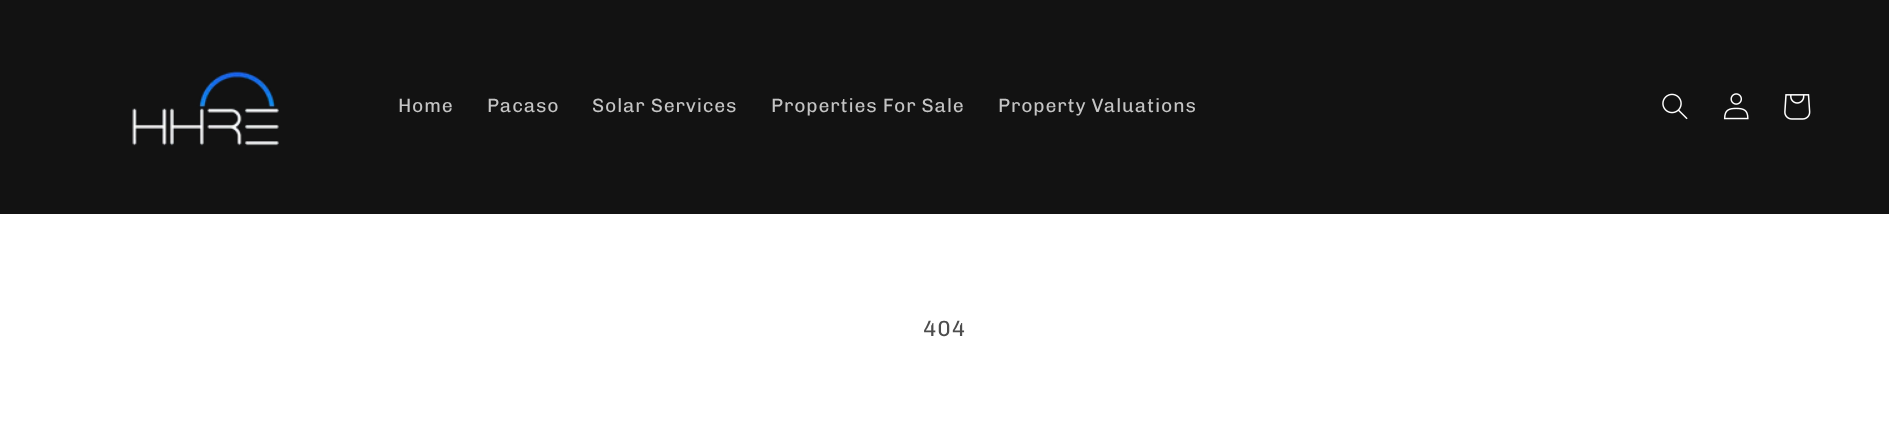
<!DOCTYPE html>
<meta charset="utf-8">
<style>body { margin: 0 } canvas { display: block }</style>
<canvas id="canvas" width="1889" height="443"></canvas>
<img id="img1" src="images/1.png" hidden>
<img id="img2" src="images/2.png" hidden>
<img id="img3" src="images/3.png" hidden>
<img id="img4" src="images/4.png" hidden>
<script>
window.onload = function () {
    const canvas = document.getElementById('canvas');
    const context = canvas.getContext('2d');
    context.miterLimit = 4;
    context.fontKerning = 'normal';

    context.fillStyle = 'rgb(255, 255, 255)';
    context.fillRect(0, 0, 1889, 443);
    context.fillStyle = 'rgb(18, 18, 18)';
    context.fillRect(0, 0, 1889, 214);
    context.drawImage(document.getElementById('img1'), 132, 71, 147, 75);
    context.drawImage(document.getElementById('img2'), 1662, 93, 26, 27);
    context.drawImage(document.getElementById('img3'), 1723, 93, 26, 27);
    context.drawImage(document.getElementById('img4'), 1784, 94, 27, 26);
    context.letterSpacing = '0.8px';
    context.font = '19.25px Chivo';
    context.fillStyle = 'rgb(196, 196, 196)';
    context.fillText('Home', 398, 112);
    context.fillText('Pacaso', 487, 112);
    context.fillText('Solar Services', 592, 112);
    context.fillText('Properties For Sale', 771, 112);
    context.fillText('Property Valuations', 998, 112);
    context.font = '22px Chivo';
    context.fillStyle = 'rgb(77, 77, 77)';
    context.fillText('404', 923, 336);
};
</script>
